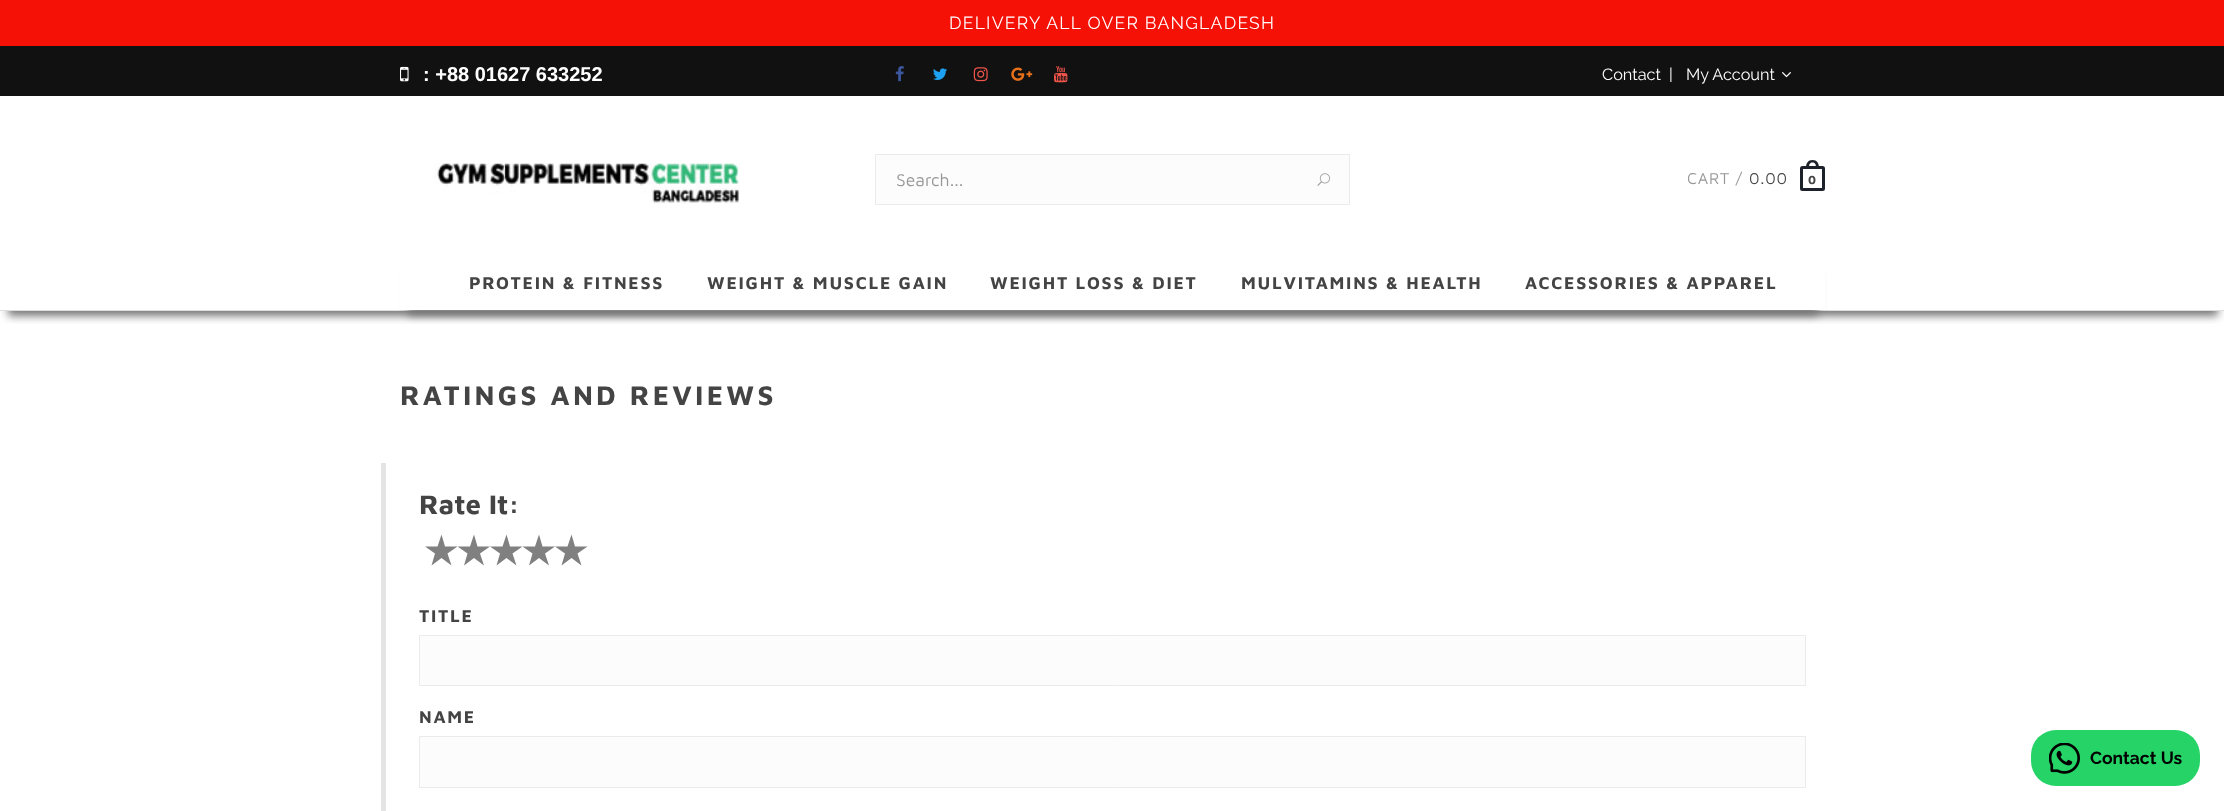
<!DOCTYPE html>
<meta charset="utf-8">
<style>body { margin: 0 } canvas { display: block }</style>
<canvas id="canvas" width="2224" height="811"></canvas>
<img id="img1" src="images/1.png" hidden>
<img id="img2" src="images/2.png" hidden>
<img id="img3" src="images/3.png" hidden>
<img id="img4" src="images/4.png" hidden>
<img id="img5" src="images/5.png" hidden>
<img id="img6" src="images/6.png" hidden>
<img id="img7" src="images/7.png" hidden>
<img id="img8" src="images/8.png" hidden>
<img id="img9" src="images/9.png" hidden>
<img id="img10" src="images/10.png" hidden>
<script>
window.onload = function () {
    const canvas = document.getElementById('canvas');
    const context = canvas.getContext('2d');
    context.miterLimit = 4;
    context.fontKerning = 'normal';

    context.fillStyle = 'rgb(255, 255, 255)';
    context.fillRect(0, 0, 2224, 811);
    context.fillStyle = 'rgb(246, 17, 7)';
    context.fillRect(0, 0, 2224, 46);
    context.fillStyle = 'rgb(17, 17, 17)';
    context.fillRect(0, 46, 2224, 50);
    context.drawImage(document.getElementById('img1'), 400, 66, 9, 16);
    context.drawImage(document.getElementById('img2'), 895, 66, 9, 16);
    context.drawImage(document.getElementById('img3'), 933, 68, 14, 12);
    context.drawImage(document.getElementById('img4'), 973, 67, 15, 15);
    context.drawImage(document.getElementById('img5'), 1011, 67, 22, 14);
    context.drawImage(document.getElementById('img6'), 1054, 66, 14, 17);
    context.drawImage(document.getElementById('img7'), 1782, 72, 9, 6);
    context.save();
    context.beginPath();
    context.rect(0, 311, 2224, 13);
    context.clip();
    context.fillStyle = 'rgb(119, 119, 119)';
    context.filter = 'blur(4px)';
    context.beginPath();
    context.rect(8, 116, 2210, 200);
    context.fill();
    context.filter = 'none';
    context.restore();
    context.fillStyle = 'rgb(221, 221, 221)';
    context.fillRect(0, 310, 2224, 1);
    context.drawImage(document.getElementById('img8'), 434, 163, 306, 41);
    context.fillStyle = 'rgb(252, 252, 252)';
    context.beginPath();
    context.rect(875.5, 154.5, 474, 50);
    context.fill();
    context.strokeStyle = 'rgb(235, 235, 235)';
    context.stroke();
    context.drawImage(document.getElementById('img9'), 1317, 173, 13, 13);
    context.beginPath();
    context.roundRect(1801.5, 167.5, 22, 22, 1);
    context.strokeStyle = 'rgb(29, 33, 41)';
    context.lineWidth = 3;
    context.stroke();
    context.fillStyle = 'rgb(29, 33, 41)';
    context.beginPath();
    context.moveTo(1812.5, 160);
    context.bezierCurveTo(1817, 160, 1819, 163.5, 1819, 167.5);
    context.lineTo(1806, 167.5);
    context.bezierCurveTo(1806, 163.5, 1808, 160, 1812.5, 160);
    context.closePath();
    context.moveTo(1812.5, 162.5);
    context.bezierCurveTo(1815.5, 162.5, 1816, 165, 1816, 167.5);
    context.lineTo(1809, 167.5);
    context.bezierCurveTo(1809, 165, 1809.5, 162.5, 1812.5, 162.5);
    context.closePath();
    context.fill('evenodd');
    context.save();
    context.beginPath();
    context.moveTo(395, 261);
    context.lineTo(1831, 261);
    context.lineTo(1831, 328);
    context.lineTo(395, 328);
    context.closePath();
    context.moveTo(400, 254);
    context.lineTo(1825, 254);
    context.lineTo(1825, 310);
    context.lineTo(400, 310);
    context.closePath();
    context.clip('evenodd');
    context.fillStyle = 'rgb(119, 119, 119)';
    context.filter = 'blur(4px)';
    context.beginPath();
    context.rect(408, 274, 1410, 41);
    context.fill();
    context.filter = 'none';
    context.restore();
    context.fillStyle = 'rgb(228, 228, 228)';
    context.fillRect(381, 463, 5, 348);
    context.fillStyle = 'rgb(128, 128, 128)';
    context.beginPath();
    context.moveTo(441.5, 534.5);
    context.lineTo(445, 546.5);
    context.lineTo(457.5, 546.5);
    context.lineTo(447.5, 553.5);
    context.lineTo(451.5, 565.5);
    context.lineTo(441.5, 558);
    context.lineTo(431.5, 565.5);
    context.lineTo(435, 553.5);
    context.lineTo(425, 546.5);
    context.lineTo(437.5, 546.5);
    context.closePath();
    context.fill();
    context.beginPath();
    context.moveTo(474, 534.5);
    context.lineTo(477.5, 546.5);
    context.lineTo(490, 546.5);
    context.lineTo(480, 553.5);
    context.lineTo(484, 565.5);
    context.lineTo(474, 558);
    context.lineTo(464, 565.5);
    context.lineTo(467.5, 553.5);
    context.lineTo(457.5, 546.5);
    context.lineTo(470, 546.5);
    context.closePath();
    context.fill();
    context.beginPath();
    context.moveTo(506.5, 534.5);
    context.lineTo(510, 546.5);
    context.lineTo(522.5, 546.5);
    context.lineTo(512.5, 553.5);
    context.lineTo(516.5, 565.5);
    context.lineTo(506.5, 558);
    context.lineTo(496.5, 565.5);
    context.lineTo(500, 553.5);
    context.lineTo(490, 546.5);
    context.lineTo(502.5, 546.5);
    context.closePath();
    context.fill();
    context.beginPath();
    context.moveTo(539, 534.5);
    context.lineTo(542.5, 546.5);
    context.lineTo(555, 546.5);
    context.lineTo(545, 553.5);
    context.lineTo(549, 565.5);
    context.lineTo(539, 558);
    context.lineTo(529, 565.5);
    context.lineTo(532.5, 553.5);
    context.lineTo(522.5, 546.5);
    context.lineTo(535, 546.5);
    context.closePath();
    context.fill();
    context.beginPath();
    context.moveTo(571.5, 534.5);
    context.lineTo(575, 546.5);
    context.lineTo(587.5, 546.5);
    context.lineTo(577.5, 553.5);
    context.lineTo(581.5, 565.5);
    context.lineTo(571.5, 558);
    context.lineTo(561.5, 565.5);
    context.lineTo(565, 553.5);
    context.lineTo(555, 546.5);
    context.lineTo(567.5, 546.5);
    context.closePath();
    context.fill();
    context.fillStyle = 'rgb(252, 252, 252)';
    context.beginPath();
    context.rect(419.5, 635.5, 1386, 50);
    context.fill();
    context.strokeStyle = 'rgb(235, 235, 235)';
    context.lineWidth = 1;
    context.stroke();
    context.beginPath();
    context.rect(419.5, 736.5, 1386, 51);
    context.fill();
    context.stroke();
    context.fillStyle = 'rgb(37, 211, 102)';
    context.beginPath();
    context.roundRect(2031, 730, 169, 56, 25);
    context.fill();
    context.drawImage(document.getElementById('img10'), 2049, 743, 31, 31);
    context.letterSpacing = '1.25px';
    context.font = '17.5px Raleway';
    context.fillStyle = 'rgb(255, 255, 255)';
    context.fillText('DELIVERY ALL OVER BANGLADESH', 949, 29);
    context.letterSpacing = '0px';
    context.font = 'bold 20px Liberation Sans';
    context.fillText(': +88 01627 633252', 423, 81);
    context.font = '16.25px Raleway';
    context.fillText('Contact', 1602, 80);
    context.fillText('|', 1669, 80);
    context.fillText('My Account', 1686, 80);
    context.font = '17.5px Maven Pro';
    context.fillStyle = 'rgb(151, 151, 151)';
    context.fillText('Search...', 896, 186);
    context.letterSpacing = '0.75px';
    context.font = '16.25px Maven Pro';
    context.fillText('CART /', 1687, 184);
    context.fillStyle = 'rgb(68, 68, 68)';
    context.fillText('0.00', 1749, 184);
    context.letterSpacing = '0px';
    context.font = 'bold 12px Maven Pro';
    context.fillText('0', 1808, 184);
    context.letterSpacing = '1.75px';
    context.font = 'bold 17.5px Maven Pro';
    context.fillText('PROTEIN & FITNESS', 469, 289);
    context.fillText('WEIGHT & MUSCLE GAIN', 707, 289);
    context.fillText('WEIGHT LOSS & DIET', 990, 289);
    context.fillText('MULVITAMINS & HEALTH', 1241, 289);
    context.fillText('ACCESSORIES & APPAREL', 1525, 289);
    context.letterSpacing = '3.25px';
    context.font = 'bold 27.6px Maven Pro';
    context.fillText('RATINGS AND REVIEWS', 400, 405);
    context.letterSpacing = '0px';
    context.font = 'bold 27.5px Maven Pro';
    context.fillText('Rate It:', 419, 514);
    context.letterSpacing = '1.75px';
    context.font = 'bold 17.5px Maven Pro';
    context.fillText('TITLE', 419, 622);
    context.fillText('NAME', 419, 723);
    context.letterSpacing = '0px';
    context.font = 'bold 17.5px Raleway';
    context.fillStyle = 'rgb(0, 0, 0)';
    context.fillText('Contact Us', 2090, 764);
};
</script>
